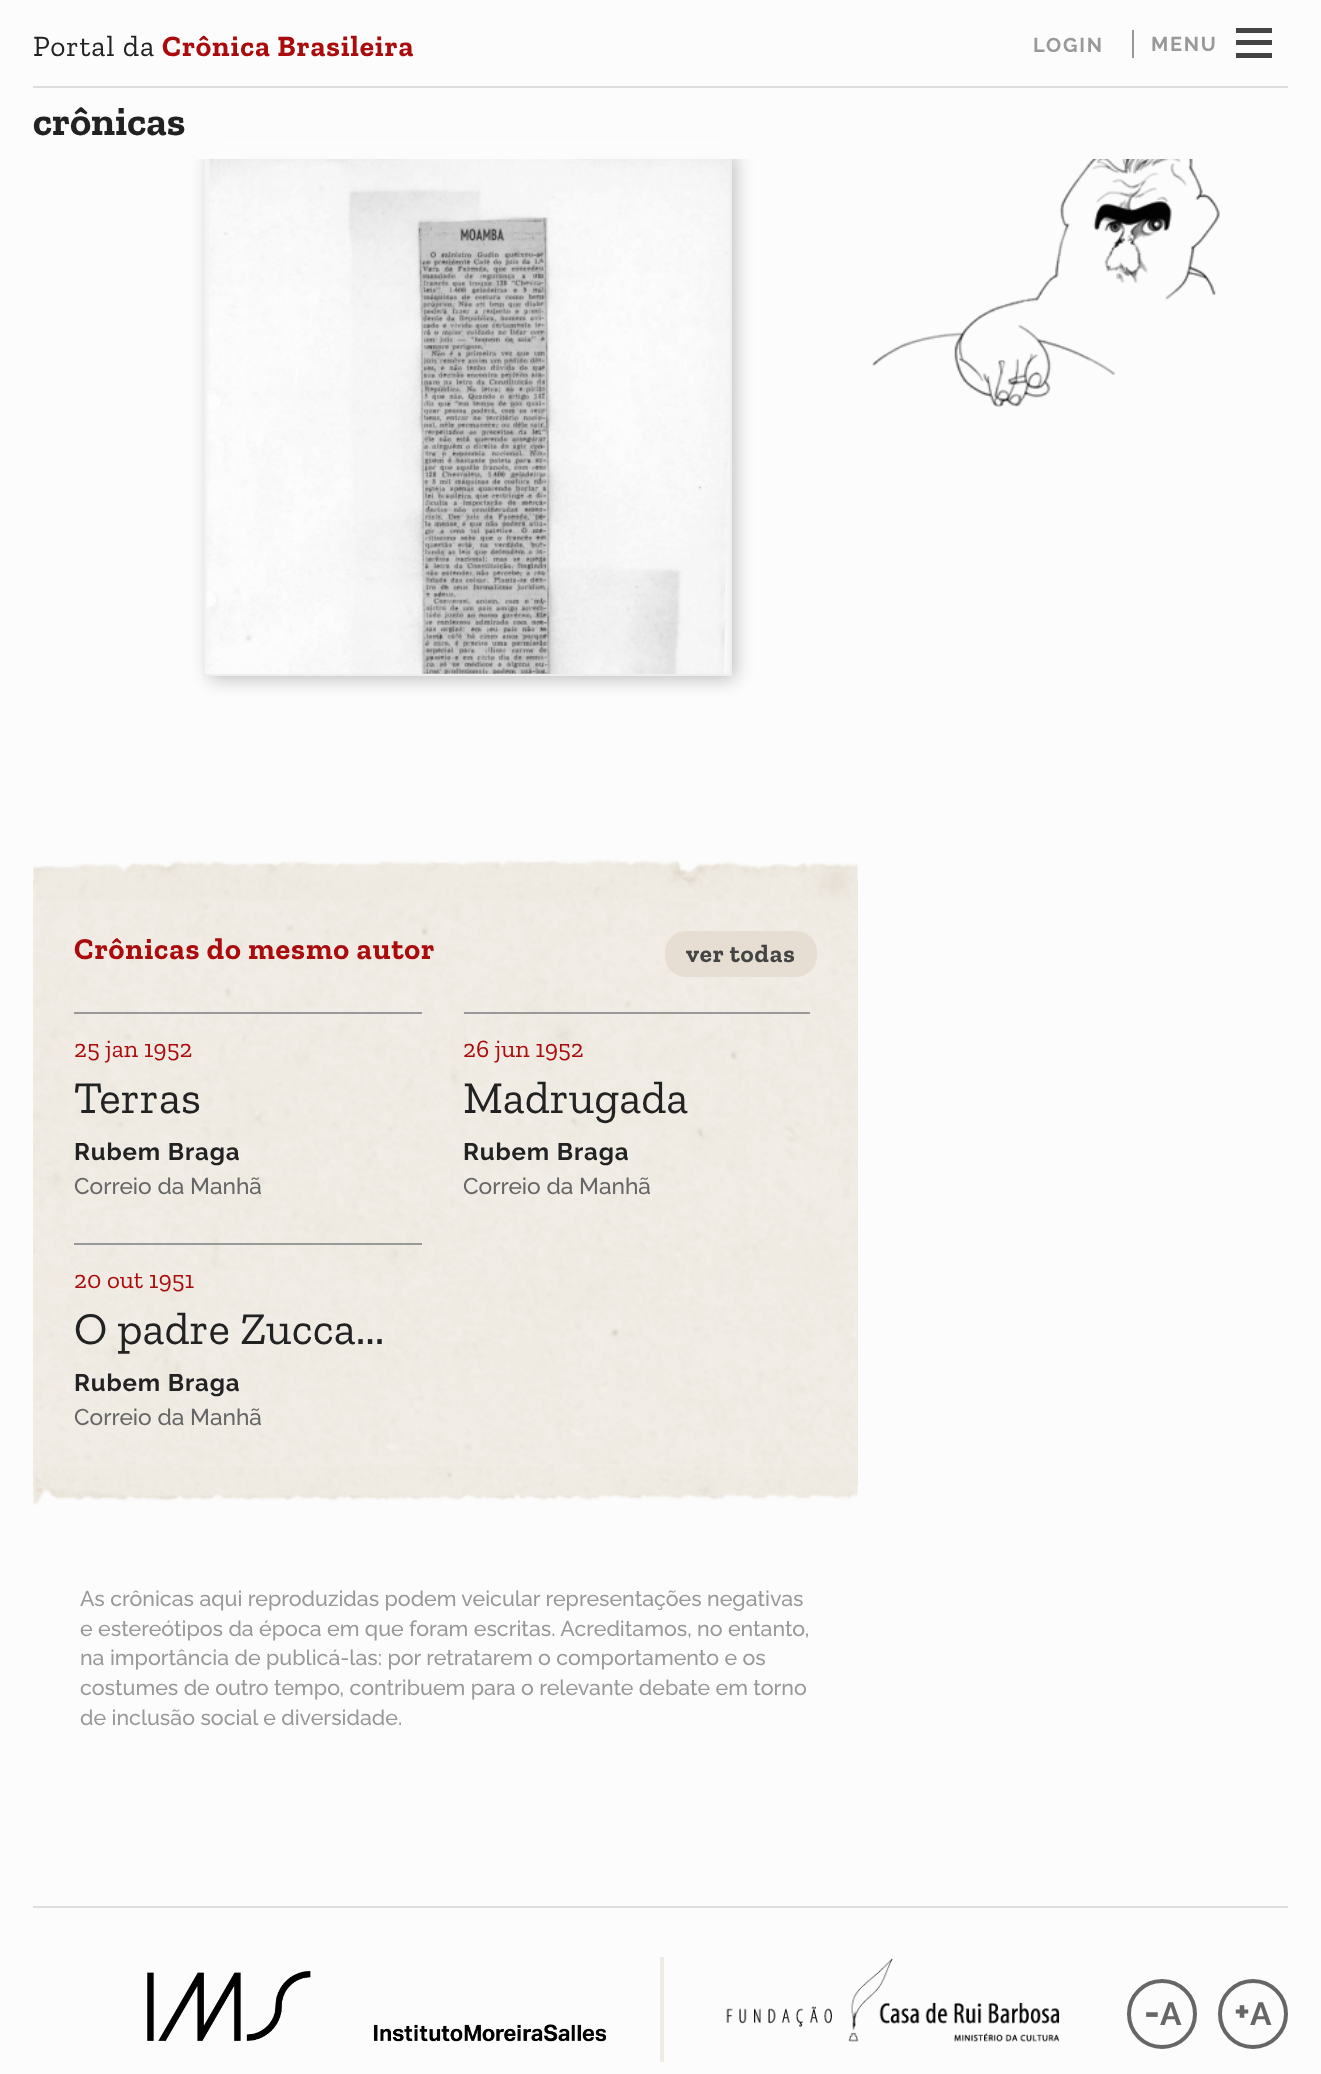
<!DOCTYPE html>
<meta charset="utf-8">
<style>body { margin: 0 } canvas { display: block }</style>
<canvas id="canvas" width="1321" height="2074"></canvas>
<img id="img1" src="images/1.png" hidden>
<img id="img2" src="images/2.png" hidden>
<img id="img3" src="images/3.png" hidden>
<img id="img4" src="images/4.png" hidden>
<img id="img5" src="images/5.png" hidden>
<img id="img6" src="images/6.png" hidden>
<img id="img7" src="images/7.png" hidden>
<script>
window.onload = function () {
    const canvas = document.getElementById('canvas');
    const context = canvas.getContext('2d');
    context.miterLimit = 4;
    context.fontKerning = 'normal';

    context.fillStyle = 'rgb(252, 252, 252)';
    context.fillRect(0, 0, 1321, 2074);
    context.fillStyle = 'rgba(0, 0, 0, 0.25)';
    context.filter = 'blur(9px)';
    context.beginPath();
    context.rect(210, 154, 525, 525);
    context.fill();
    context.filter = 'none';
    context.drawImage(document.getElementById('img1'), 205, 159, 525, 515);
    context.strokeStyle = 'rgb(238, 238, 238)';
    context.lineWidth = 2;
    context.strokeRect(204, 148, 527, 527);
    context.fillStyle = 'rgb(252, 252, 252)';
    context.fillRect(196, 138, 553, 21);
    context.fillStyle = 'rgb(221, 221, 221)';
    context.fillRect(33, 86, 1255, 2);
    context.beginPath();
    context.arc(1162, 2014, 33, 0, 2 * Math.PI);
    context.strokeStyle = 'rgb(102, 102, 102)';
    context.lineWidth = 4;
    context.stroke();
    context.beginPath();
    context.arc(1253, 2014, 33, 0, 2 * Math.PI);
    context.stroke();
    context.fillStyle = 'rgb(68, 68, 68)';
    context.fillRect(1236, 28, 36, 5);
    context.fillStyle = 'rgb(153, 153, 153)';
    context.fillRect(1132, 30, 2, 28);
    context.fillStyle = 'rgb(68, 68, 68)';
    context.fillRect(1236, 40, 36, 5);
    context.fillRect(1236, 53, 36, 5);
    context.drawImage(document.getElementById('img2'), 872, 159, 348, 248);
    context.fillStyle = 'rgb(239, 235, 227)';
    context.fillRect(33, 880, 825, 606);
    context.drawImage(document.getElementById('img3'), 33, 879, 824, 605);
    context.drawImage(document.getElementById('img4'), 33, 859, 825, 42);
    context.fillStyle = 'rgb(230, 222, 211)';
    context.beginPath();
    context.roundRect(665, 931, 152, 46, 21);
    context.fill();
    context.fillStyle = 'rgb(153, 153, 153)';
    context.fillRect(74, 1012, 348, 2);
    context.fillRect(464, 1012, 346, 2);
    context.fillRect(74, 1243, 348, 2);
    context.drawImage(document.getElementById('img5'), 33, 1464, 825, 41);
    context.fillStyle = 'rgb(221, 221, 221)';
    context.fillRect(33, 1906, 1255, 2);
    context.drawImage(document.getElementById('img6'), 147, 1971, 459, 71);
    context.fillStyle = 'rgb(239, 235, 227)';
    context.fillRect(660, 1957, 4, 105);
    context.drawImage(document.getElementById('img7'), 726, 1958, 334, 84);
    context.letterSpacing = '0.9px';
    context.font = '29.5px Zilla Slab';
    context.fillStyle = 'rgb(34, 34, 34)';
    context.fillText('Portal da', 33, 56);
    context.font = 'bold 29.5px Zilla Slab';
    context.fillStyle = 'rgb(170, 11, 12)';
    context.fillText('Crônica Brasileira', 162, 56);
    context.letterSpacing = '1.75px';
    context.font = 'bold 20px Raleway';
    context.fillStyle = 'rgb(153, 153, 153)';
    context.fillText('LOGIN', 1033, 52);
    context.letterSpacing = '0px';
    context.font = 'bold 38px Raleway';
    context.fillStyle = 'rgb(102, 102, 102)';
    context.fillText('-', 1144, 2025);
    context.font = 'bold 32px Raleway';
    context.fillText('A', 1160, 2025);
    context.font = 'bold 38px Raleway';
    context.fillText('+', 1234, 2025);
    context.font = 'bold 32px Raleway';
    context.fillText('A', 1250, 2025);
    context.letterSpacing = '1.75px';
    context.font = 'bold 20px Raleway';
    context.fillStyle = 'rgb(153, 153, 153)';
    context.fillText('MENU', 1151, 51);
    context.letterSpacing = '0px';
    context.font = 'bold 40.5px Zilla Slab';
    context.fillStyle = 'rgb(34, 34, 34)';
    context.fillText('crônicas', 33, 135);
    context.letterSpacing = '0.9px';
    context.font = 'bold 30.25px Zilla Slab';
    context.fillStyle = 'rgb(170, 11, 12)';
    context.fillText('Crônicas do mesmo autor', 74, 959);
    context.font = 'bold 25px Zilla Slab';
    context.fillStyle = 'rgb(68, 68, 68)';
    context.fillText('ver todas', 686, 962);
    context.letterSpacing = '0px';
    context.font = '25px Zilla Slab';
    context.fillStyle = 'rgb(170, 11, 12)';
    context.fillText('25 jan 1952', 74, 1057);
    context.font = '45.5px Zilla Slab';
    context.fillStyle = 'rgb(34, 34, 34)';
    context.fillText('Terras', 74, 1113);
    context.letterSpacing = '0.9px';
    context.font = 'bold 24px Raleway';
    context.fillText('Rubem Braga', 74, 1160);
    context.letterSpacing = '0px';
    context.font = '500 22.75px Raleway';
    context.fillStyle = 'rgb(102, 102, 102)';
    context.fillText('Correio da Manhã', 74, 1194);
    context.font = '25px Zilla Slab';
    context.fillStyle = 'rgb(170, 11, 12)';
    context.fillText('26 jun 1952', 463, 1057);
    context.font = '45.5px Zilla Slab';
    context.fillStyle = 'rgb(34, 34, 34)';
    context.fillText('Madrugada', 463, 1113);
    context.letterSpacing = '0.9px';
    context.font = 'bold 24px Raleway';
    context.fillText('Rubem Braga', 463, 1160);
    context.letterSpacing = '0px';
    context.font = '500 22.75px Raleway';
    context.fillStyle = 'rgb(102, 102, 102)';
    context.fillText('Correio da Manhã', 463, 1194);
    context.font = '25px Zilla Slab';
    context.fillStyle = 'rgb(170, 11, 12)';
    context.fillText('20 out 1951', 74, 1288);
    context.font = '45.5px Zilla Slab';
    context.fillStyle = 'rgb(34, 34, 34)';
    context.fillText('O padre Zucca...', 74, 1344);
    context.letterSpacing = '0.9px';
    context.font = 'bold 24px Raleway';
    context.fillText('Rubem Braga', 74, 1391);
    context.letterSpacing = '0px';
    context.font = '500 22.75px Raleway';
    context.fillStyle = 'rgb(102, 102, 102)';
    context.fillText('Correio da Manhã', 74, 1425);
    context.font = '500 21.4px Raleway';
    context.fillStyle = 'rgb(153, 153, 153)';
    context.fillText('As crônicas aqui reproduzidas podem veicular representações negativas', 80, 1606);
    context.fillText('e estereótipos da época em que foram escritas. Acreditamos, no entanto,', 80, 1636);
    context.fillText('na importância de publicá-las: por retratarem o comportamento e os', 80, 1665);
    context.fillText('costumes de outro tempo, contribuem para o relevante debate em torno', 80, 1695);
    context.fillText('de inclusão social e diversidade.', 80, 1725);
};
</script>
